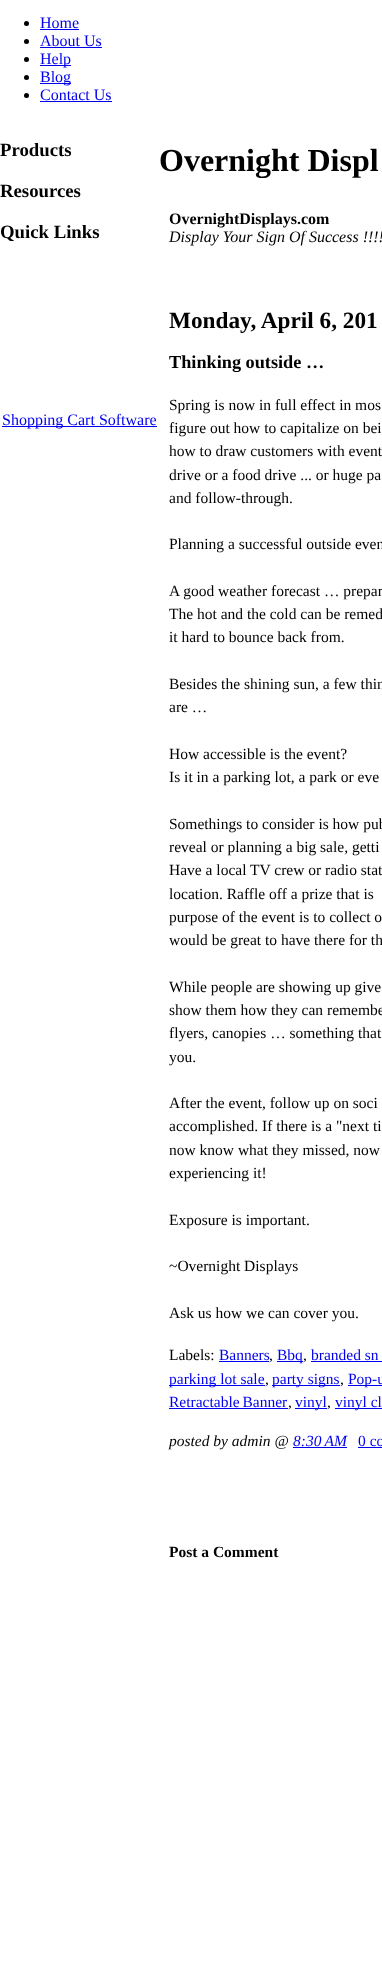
<!DOCTYPE html>
<meta charset="utf-8">
<style>body { margin: 0 } canvas { display: block }</style>
<canvas id="canvas" width="382" height="1962"></canvas>
<script>
window.onload = function () {
    const canvas = document.getElementById('canvas');
    const context = canvas.getContext('2d');
    context.miterLimit = 4;
    context.fontKerning = 'normal';

    context.fillStyle = 'rgb(255, 255, 255)';
    context.fillRect(0, 0, 382, 1962);
    context.fillStyle = 'rgb(0, 0, 0)';
    context.beginPath();
    context.arc(26.5, 23.5, 2.5, 0, 2 * Math.PI);
    context.fill();
    context.fillStyle = 'rgb(0, 0, 238)';
    context.fillRect(40, 29, 39, 1);
    context.fillStyle = 'rgb(0, 0, 0)';
    context.beginPath();
    context.arc(26.5, 41.5, 2.5, 0, 2 * Math.PI);
    context.fill();
    context.fillStyle = 'rgb(0, 0, 238)';
    context.fillRect(40, 47, 62, 1);
    context.fillStyle = 'rgb(0, 0, 0)';
    context.beginPath();
    context.arc(26.5, 59.5, 2.5, 0, 2 * Math.PI);
    context.fill();
    context.fillStyle = 'rgb(0, 0, 238)';
    context.fillRect(40, 65, 31, 1);
    context.fillStyle = 'rgb(0, 0, 0)';
    context.beginPath();
    context.arc(26.5, 77.5, 2.5, 0, 2 * Math.PI);
    context.fill();
    context.fillStyle = 'rgb(0, 0, 238)';
    context.fillRect(40, 83, 31, 1);
    context.fillStyle = 'rgb(0, 0, 0)';
    context.beginPath();
    context.arc(26.5, 95.5, 2.5, 0, 2 * Math.PI);
    context.fill();
    context.fillStyle = 'rgb(0, 0, 238)';
    context.fillRect(40, 101, 72, 1);
    context.fillRect(2, 426, 155, 1);
    context.fillRect(219, 1361, 50, 1);
    context.fillRect(277, 1361, 26, 1);
    context.fillRect(311, 1361, 71, 1);
    context.fillRect(169, 1385, 96, 1);
    context.fillRect(272, 1385, 68, 1);
    context.fillRect(348, 1385, 34, 1);
    context.fillRect(169, 1408, 119, 1);
    context.fillRect(295, 1408, 32, 1);
    context.fillRect(335, 1408, 47, 1);
    context.fillRect(293, 1447, 54, 1);
    context.fillRect(358, 1447, 24, 1);
    context.font = '16px Liberation Serif';
    context.fillText('Home', 40, 28);
    context.fillText('About Us', 40, 46);
    context.fillText('Help', 40, 64);
    context.fillText('Blog', 40, 82);
    context.fillText('Contact Us', 40, 100);
    context.font = 'bold 18.75px Liberation Serif';
    context.fillStyle = 'rgb(0, 0, 0)';
    context.fillText('Products', 0, 156);
    context.fillText('Resources', 0, 197);
    context.fillText('Quick Links', 0, 238);
    context.font = '16px Liberation Serif';
    context.fillStyle = 'rgb(0, 0, 238)';
    context.fillText('Shopping Cart Software', 2, 425);
    context.font = 'bold 32px Liberation Serif';
    context.fillStyle = 'rgb(0, 0, 0)';
    context.fillText('Overnight Displ', 159, 171);
    context.font = 'bold 16px Liberation Serif';
    context.fillText('OvernightDisplays.com', 169, 224);
    context.font = 'italic 16px Liberation Serif';
    context.fillText('Display Your Sign Of Success !!!!', 169, 242);
    context.font = 'bold 23.25px Liberation Serif';
    context.fillText('Monday, April 6, 201', 169, 328);
    context.font = 'bold 18.25px Liberation Serif';
    context.fillText('Thinking outside …', 169, 368);
    context.font = '15.5px Liberation Serif';
    context.fillText('Spring is now in full effect in mos', 169, 410);
    context.fillText('figure out how to capitalize on bei', 169, 433);
    context.fillText('how to draw customers with event', 169, 456);
    context.fillText('drive or a food drive ... or huge pa', 169, 480);
    context.fillText('and follow-through.', 169, 503);
    context.fillText('Planning a successful outside even', 169, 549);
    context.fillText('A good weather forecast … prepar', 169, 596);
    context.fillText('The hot and the cold can be remed', 169, 619);
    context.fillText('it hard to bounce back from.', 169, 642);
    context.fillText('Besides the shining sun, a few thin', 169, 689);
    context.fillText('are …', 169, 712);
    context.fillText('How accessible is the event?', 169, 759);
    context.fillText('Is it in a parking lot, a park or eve', 169, 782);
    context.fillText('Somethings to consider is how pub', 169, 829);
    context.fillText('reveal or planning a big sale, getti', 169, 852);
    context.fillText('Have a local TV crew or radio stat', 169, 875);
    context.fillText('location. Raffle off a prize that is', 169, 899);
    context.fillText('purpose of the event is to collect o', 169, 922);
    context.fillText('would be great to have there for th', 169, 945);
    context.fillText('While people are showing up give', 169, 992);
    context.fillText('show them how they can remembe', 169, 1015);
    context.fillText('flyers, canopies … something that', 169, 1038);
    context.fillText('you.', 169, 1062);
    context.fillText('After the event, follow up on soci', 169, 1108);
    context.fillText('accomplished. If there is a "next ti', 169, 1131);
    context.fillText('now know what they missed, now', 169, 1155);
    context.fillText('experiencing it!', 169, 1178);
    context.fillText('Exposure is important.', 169, 1225);
    context.fillText('~Overnight Displays', 169, 1271);
    context.fillText('Ask us how we can cover you.', 169, 1318);
    context.fillText('Labels:', 169, 1360);
    context.fillStyle = 'rgb(0, 0, 238)';
    context.fillText('Banners', 219, 1360);
    context.fillStyle = 'rgb(0, 0, 0)';
    context.fillText(',', 269, 1360);
    context.fillStyle = 'rgb(0, 0, 238)';
    context.fillText('Bbq', 277, 1360);
    context.fillStyle = 'rgb(0, 0, 0)';
    context.fillText(',', 303, 1360);
    context.fillStyle = 'rgb(0, 0, 238)';
    context.fillText('branded sn', 311, 1360);
    context.fillText('parking lot sale', 169, 1384);
    context.fillStyle = 'rgb(0, 0, 0)';
    context.fillText(',', 265, 1384);
    context.fillStyle = 'rgb(0, 0, 238)';
    context.fillText('party signs', 272, 1384);
    context.fillStyle = 'rgb(0, 0, 0)';
    context.fillText(',', 340, 1384);
    context.fillStyle = 'rgb(0, 0, 238)';
    context.fillText('Pop-u', 348, 1384);
    context.wordSpacing = '-1px';
    context.fillText('Retractable Banner', 169, 1407);
    context.wordSpacing = '0px';
    context.fillStyle = 'rgb(0, 0, 0)';
    context.fillText(',', 288, 1407);
    context.fillStyle = 'rgb(0, 0, 238)';
    context.fillText('vinyl', 295, 1407);
    context.fillStyle = 'rgb(0, 0, 0)';
    context.fillText(',', 327, 1407);
    context.fillStyle = 'rgb(0, 0, 238)';
    context.fillText('vinyl cl', 335, 1407);
    context.font = 'italic 15.5px Liberation Serif';
    context.fillStyle = 'rgb(0, 0, 0)';
    context.fillText('posted by admin @', 169, 1446);
    context.fillStyle = 'rgb(0, 0, 238)';
    context.fillText('8:30 AM', 293, 1446);
    context.font = '15.5px Liberation Serif';
    context.fillText('0 co', 358, 1446);
    context.font = 'bold 15.5px Liberation Serif';
    context.fillStyle = 'rgb(0, 0, 0)';
    context.fillText('Post a Comment', 169, 1557);
};
</script>
